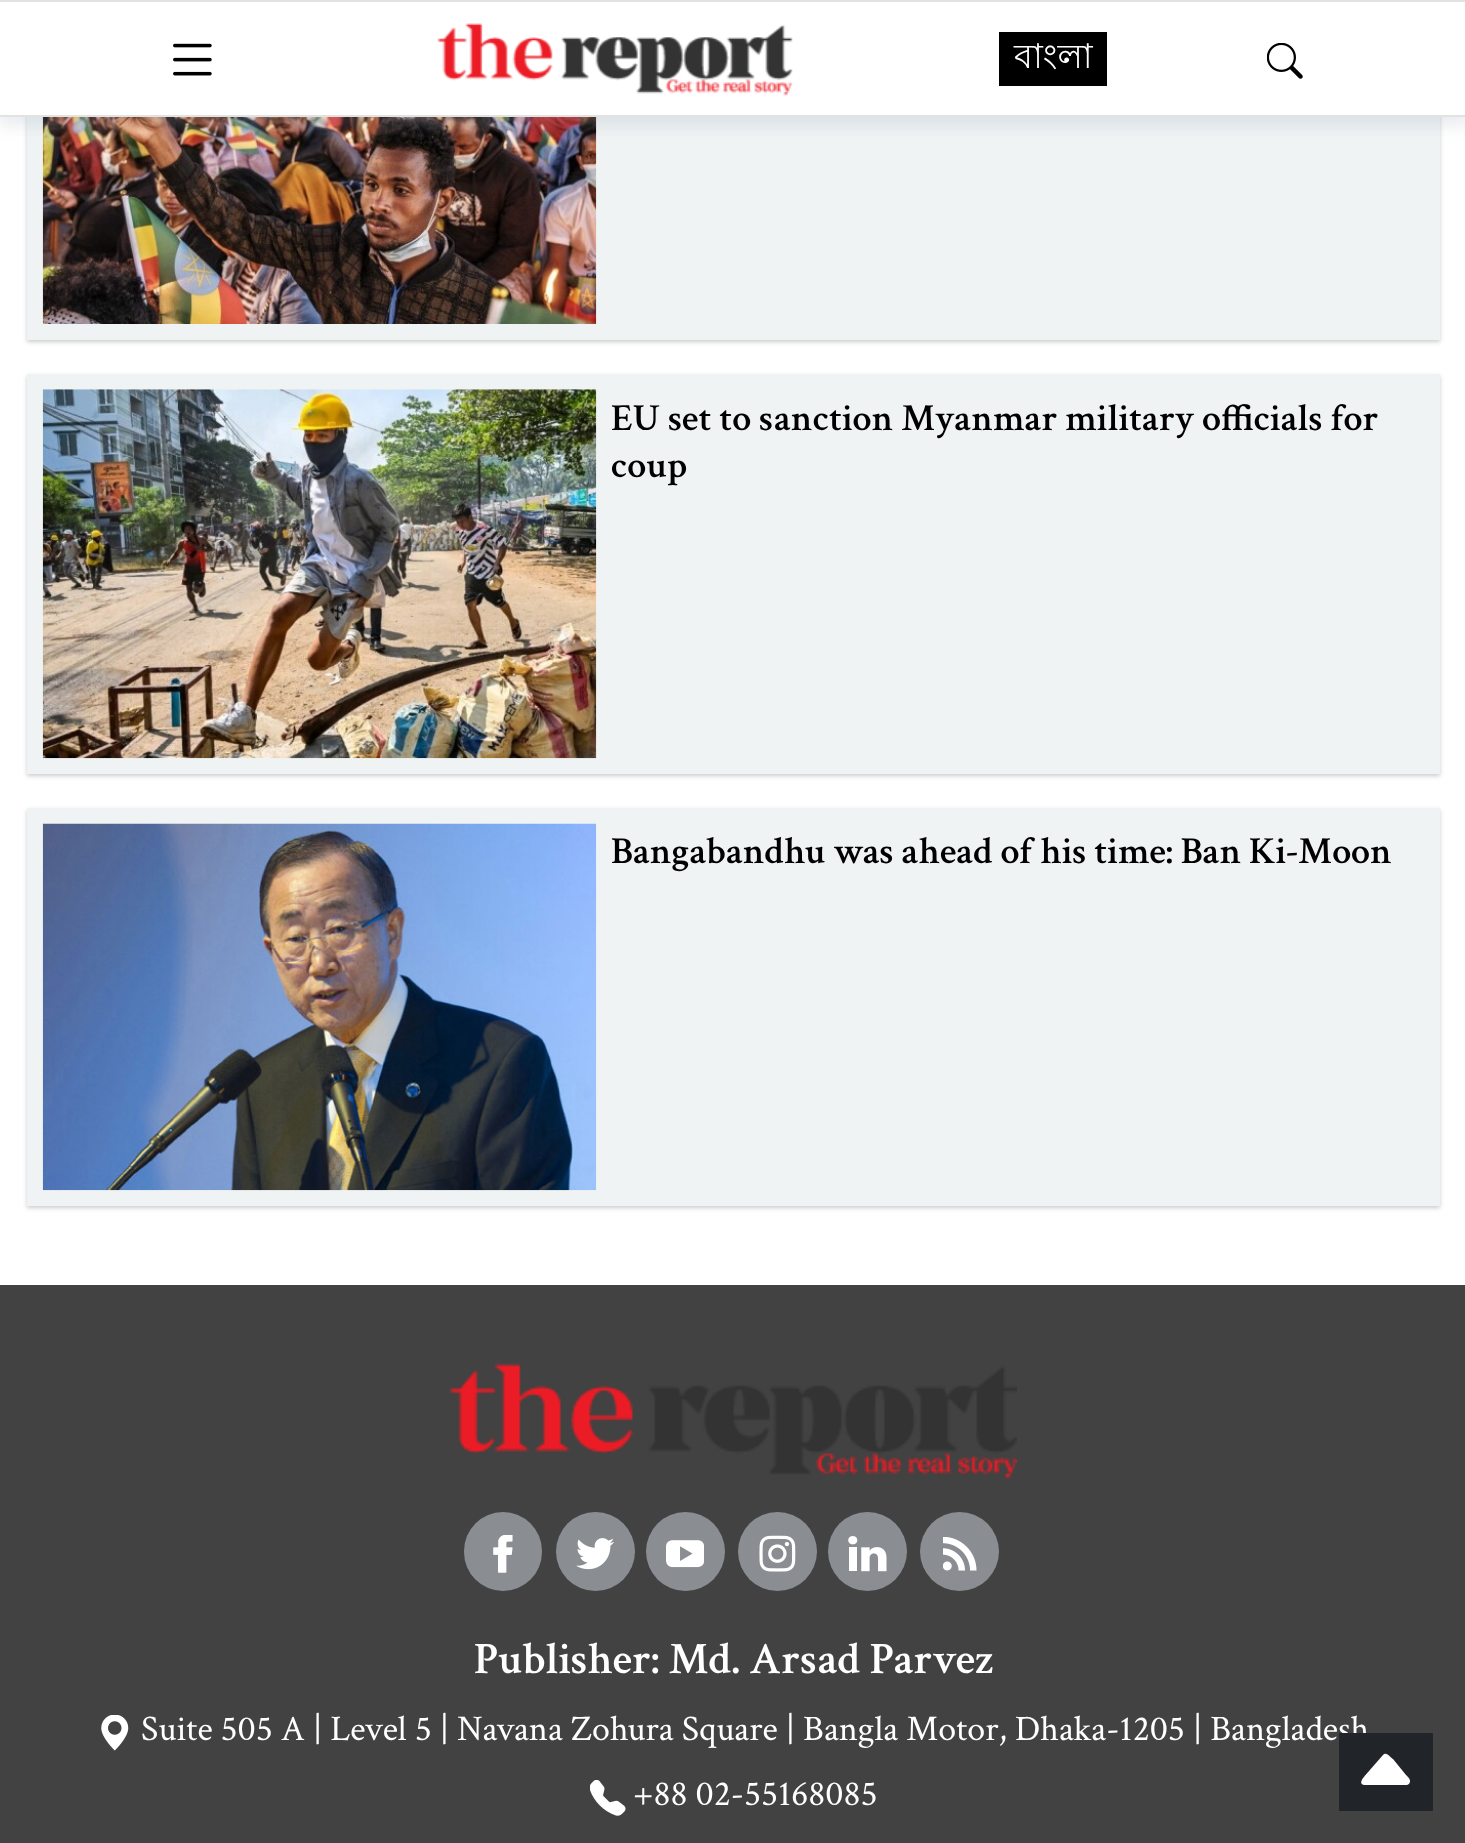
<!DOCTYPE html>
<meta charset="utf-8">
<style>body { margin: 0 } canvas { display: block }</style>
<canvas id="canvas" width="1465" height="1843"></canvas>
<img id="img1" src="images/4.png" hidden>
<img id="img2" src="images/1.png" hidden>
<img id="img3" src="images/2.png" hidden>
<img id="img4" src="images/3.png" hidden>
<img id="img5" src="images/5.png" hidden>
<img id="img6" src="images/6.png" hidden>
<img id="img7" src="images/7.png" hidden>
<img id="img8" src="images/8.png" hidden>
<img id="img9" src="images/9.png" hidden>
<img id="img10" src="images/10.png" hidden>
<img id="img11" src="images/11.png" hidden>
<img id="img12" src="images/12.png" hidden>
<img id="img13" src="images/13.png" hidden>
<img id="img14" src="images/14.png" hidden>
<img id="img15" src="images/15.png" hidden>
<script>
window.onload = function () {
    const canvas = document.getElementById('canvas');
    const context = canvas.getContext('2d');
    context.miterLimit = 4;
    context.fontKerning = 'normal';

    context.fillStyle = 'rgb(255, 255, 255)';
    context.fillRect(0, 0, 1465, 1843);
    context.fillStyle = 'rgba(0, 0, 0, 0.2)';
    context.filter = 'blur(2px)';
    context.beginPath();
    context.rect(27, -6, 1413, 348);
    context.fill();
    context.filter = 'none';
    context.fillStyle = 'rgb(239, 243, 244)';
    context.fillRect(27, 117, 1413, 223);
    context.drawImage(document.getElementById('img1'), 42, 117, 555, 207);
    context.fillStyle = 'rgba(144, 161, 180, 0.2)';
    context.filter = 'blur(8px)';
    context.beginPath();
    context.rect(-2, 5, 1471, 121);
    context.fill();
    context.filter = 'none';
    context.fillStyle = 'rgb(255, 255, 255)';
    context.fillRect(0, 2, 1465, 113);
    context.fillStyle = 'rgb(226, 226, 226)';
    context.fillRect(0, 0, 1465, 2);
    context.fillRect(0, 115, 1465, 2);
    context.drawImage(document.getElementById('img2'), 173, 43, 39, 33);
    context.drawImage(document.getElementById('img3'), 437, 23, 356, 74);
    context.fillStyle = 'rgb(0, 0, 0)';
    context.fillRect(999, 32, 108, 54);
    context.drawImage(document.getElementById('img4'), 1267, 43, 36, 36);
    context.fillStyle = 'rgba(0, 0, 0, 0.2)';
    context.filter = 'blur(2px)';
    context.beginPath();
    context.rect(27, 376, 1413, 400);
    context.fill();
    context.filter = 'none';
    context.fillStyle = 'rgb(239, 243, 244)';
    context.fillRect(27, 374, 1413, 400);
    context.drawImage(document.getElementById('img5'), 42, 389, 555, 370);
    context.fillStyle = 'rgba(0, 0, 0, 0.2)';
    context.filter = 'blur(2px)';
    context.beginPath();
    context.rect(27, 810, 1413, 398);
    context.fill();
    context.filter = 'none';
    context.fillStyle = 'rgb(239, 243, 244)';
    context.fillRect(27, 808, 1413, 398);
    context.drawImage(document.getElementById('img6'), 42, 823, 555, 368);
    context.fillStyle = 'rgb(66, 66, 66)';
    context.fillRect(0, 1285, 1465, 558);
    context.drawImage(document.getElementById('img7'), 450, 1363, 567, 116);
    context.fillStyle = 'rgb(138, 142, 147)';
    context.beginPath();
    context.roundRect(464, 1512, 78, 79, 39);
    context.fill();
    context.drawImage(document.getElementById('img8'), 493, 1535, 20, 38);
    context.beginPath();
    context.arc(595.5, 1551.5, 39.5, 0, 2 * Math.PI);
    context.fill();
    context.drawImage(document.getElementById('img9'), 576, 1538, 38, 32);
    context.beginPath();
    context.arc(685.5, 1551.5, 39.5, 0, 2 * Math.PI);
    context.fill();
    context.drawImage(document.getElementById('img10'), 666, 1540, 38, 28);
    context.beginPath();
    context.arc(777.5, 1551.5, 39.5, 0, 2 * Math.PI);
    context.fill();
    context.drawImage(document.getElementById('img11'), 759, 1535, 37, 37);
    context.beginPath();
    context.arc(867.5, 1551.5, 39.5, 0, 2 * Math.PI);
    context.fill();
    context.drawImage(document.getElementById('img12'), 848, 1536, 39, 36);
    context.beginPath();
    context.arc(959.5, 1551.5, 39.5, 0, 2 * Math.PI);
    context.fill();
    context.drawImage(document.getElementById('img13'), 943, 1537, 34, 34);
    context.drawImage(document.getElementById('img14'), 101, 1715, 28, 36);
    context.drawImage(document.getElementById('img15'), 590, 1780, 36, 36);
    context.font = '34px Lohit Bengali';
    context.fillStyle = 'rgb(255, 255, 255)';
    context.fillText('বাংলা', 1014, 68);
    context.font = '600 38.25px Crimson Text';
    context.fillStyle = 'rgb(0, 0, 0)';
    context.fillText('EU set to sanction Myanmar military officials for', 611, 430);
    context.fillText('coup', 611, 477);
    context.fillText('Bangabandhu was ahead of his time: Ban Ki-Moon', 611, 863);
    context.font = '600 45px Crimson Text';
    context.fillStyle = 'rgb(255, 255, 255)';
    context.fillText('Publisher: Md. Arsad Parvez', 474, 1673);
    context.font = '36px Crimson Text';
    context.fillText('Suite 505 A | Level 5 | Navana Zohura Square | Bangla Motor, Dhaka-1205 | Bangladesh', 141, 1740);
    context.fillText('+88 02-55168085', 633, 1805);
    context.fillStyle = 'rgb(33, 37, 41)';
    context.fillRect(1339, 1733, 94, 78);
    context.fillStyle = 'rgb(255, 255, 255)';
    context.beginPath();
    context.moveTo(1383, 1755);
    context.lineTo(1369, 1771);
    context.bezierCurveTo(1368, 1773, 1356, 1783, 1364, 1785);
    context.lineTo(1407, 1785);
    context.lineTo(1409, 1784);
    context.bezierCurveTo(1412, 1780, 1408, 1777, 1406, 1775);
    context.lineTo(1393, 1759);
    context.bezierCurveTo(1390, 1757, 1386, 1751, 1383, 1755);
    context.closePath();
    context.fill();
};
</script>
